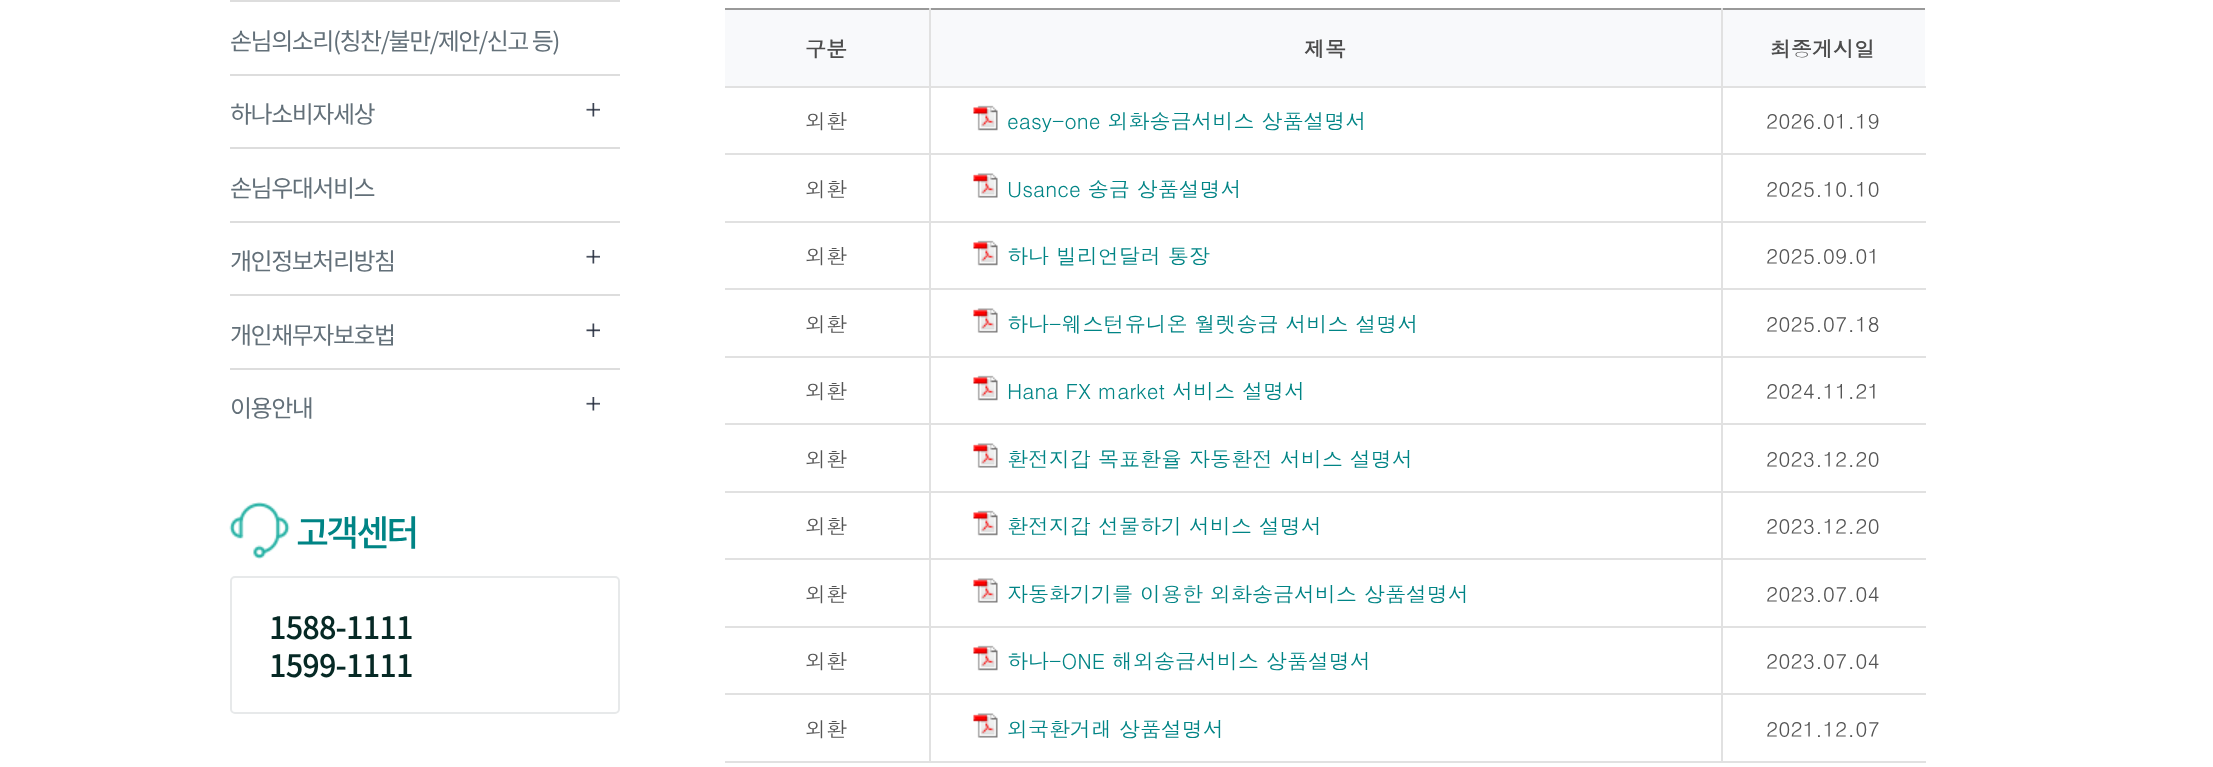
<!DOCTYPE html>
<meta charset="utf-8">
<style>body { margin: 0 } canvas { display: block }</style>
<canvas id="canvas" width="2213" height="767"></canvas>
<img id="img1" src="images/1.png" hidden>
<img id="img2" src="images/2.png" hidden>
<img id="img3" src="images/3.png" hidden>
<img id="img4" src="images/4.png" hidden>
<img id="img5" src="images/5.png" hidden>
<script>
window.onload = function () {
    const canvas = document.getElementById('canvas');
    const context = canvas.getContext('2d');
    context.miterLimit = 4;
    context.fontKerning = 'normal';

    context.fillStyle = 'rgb(255, 255, 255)';
    context.fillRect(0, 0, 2213, 767);
    context.fillStyle = 'rgb(221, 221, 221)';
    context.fillRect(230, 0, 390, 2);
    context.fillRect(230, 74, 390, 2);
    context.drawImage(document.getElementById('img1'), 586, 103, 14, 14);
    context.fillRect(230, 147, 390, 2);
    context.fillRect(230, 221, 390, 2);
    context.drawImage(document.getElementById('img1'), 586, 250, 14, 14);
    context.fillRect(230, 294, 390, 2);
    context.drawImage(document.getElementById('img2'), 586, 323, 14, 14);
    context.fillRect(230, 368, 390, 2);
    context.drawImage(document.getElementById('img1'), 586, 397, 14, 14);
    context.drawImage(document.getElementById('img3'), 229, 502, 61, 57);
    context.beginPath();
    context.roundRect(231, 577, 388, 136, 4);
    context.strokeStyle = 'rgb(231, 233, 234)';
    context.lineWidth = 2;
    context.stroke();
    context.fillStyle = 'rgb(153, 153, 153)';
    context.fillRect(725, 8, 1200, 2);
    context.fillStyle = 'rgb(248, 249, 251)';
    context.fillRect(725, 10, 204, 76);
    context.fillStyle = 'rgb(225, 225, 225)';
    context.fillRect(1721, 761, 205, 2);
    context.fillRect(1721, 693, 2, 69);
    context.fillRect(1721, 693, 205, 2);
    context.fillRect(1721, 626, 2, 69);
    context.fillRect(1721, 626, 205, 2);
    context.fillRect(1721, 558, 2, 69);
    context.fillRect(1721, 558, 205, 2);
    context.fillRect(1721, 491, 2, 69);
    context.fillRect(1721, 491, 205, 2);
    context.fillRect(1721, 423, 2, 69);
    context.fillRect(1721, 423, 205, 2);
    context.fillRect(1721, 356, 2, 69);
    context.fillRect(1721, 356, 205, 2);
    context.fillRect(1721, 288, 2, 69);
    context.fillRect(1721, 288, 205, 2);
    context.fillRect(1721, 221, 2, 69);
    context.fillRect(1721, 221, 205, 2);
    context.fillRect(1721, 153, 2, 69);
    context.fillRect(1721, 153, 205, 2);
    context.fillRect(1721, 86, 2, 69);
    context.fillRect(1721, 86, 205, 2);
    context.fillRect(1721, 8, 2, 79);
    context.fillRect(929, 761, 793, 2);
    context.fillRect(929, 693, 2, 69);
    context.fillRect(929, 693, 793, 2);
    context.fillRect(929, 626, 2, 69);
    context.fillRect(929, 626, 793, 2);
    context.fillRect(929, 558, 2, 69);
    context.fillRect(929, 558, 793, 2);
    context.fillRect(929, 491, 2, 69);
    context.fillRect(929, 491, 793, 2);
    context.fillRect(929, 423, 2, 69);
    context.fillRect(929, 423, 793, 2);
    context.fillRect(929, 356, 2, 69);
    context.fillRect(929, 356, 793, 2);
    context.fillRect(929, 288, 2, 69);
    context.fillRect(929, 288, 793, 2);
    context.fillRect(929, 221, 2, 69);
    context.fillRect(929, 221, 793, 2);
    context.fillRect(929, 153, 2, 69);
    context.fillRect(929, 153, 793, 2);
    context.fillRect(929, 86, 2, 69);
    context.fillRect(929, 86, 793, 2);
    context.fillRect(929, 8, 2, 79);
    context.fillRect(725, 86, 205, 2);
    context.fillStyle = 'rgb(248, 249, 251)';
    context.fillRect(931, 10, 790, 76);
    context.fillRect(1723, 10, 202, 76);
    context.fillStyle = 'rgb(225, 225, 225)';
    context.fillRect(725, 153, 205, 2);
    context.drawImage(document.getElementById('img4'), 973, 105, 25, 26);
    context.fillRect(725, 221, 205, 2);
    context.drawImage(document.getElementById('img5'), 973, 173, 25, 25);
    context.fillRect(725, 288, 205, 2);
    context.drawImage(document.getElementById('img4'), 973, 240, 25, 26);
    context.fillRect(725, 356, 205, 2);
    context.drawImage(document.getElementById('img5'), 973, 308, 25, 25);
    context.fillRect(725, 423, 205, 2);
    context.drawImage(document.getElementById('img4'), 973, 375, 25, 26);
    context.fillRect(725, 491, 205, 2);
    context.drawImage(document.getElementById('img5'), 973, 443, 25, 25);
    context.fillRect(725, 558, 205, 2);
    context.drawImage(document.getElementById('img4'), 973, 510, 25, 26);
    context.fillRect(725, 626, 205, 2);
    context.drawImage(document.getElementById('img5'), 973, 578, 25, 25);
    context.fillRect(725, 693, 205, 2);
    context.drawImage(document.getElementById('img4'), 973, 645, 25, 26);
    context.fillRect(725, 761, 205, 2);
    context.drawImage(document.getElementById('img5'), 973, 713, 25, 25);
    context.letterSpacing = '-1.5px';
    context.font = '24px Noto Sans KR';
    context.fillStyle = 'rgb(99, 112, 121)';
    context.fillText('손님의소리(칭찬/불만/제안/신고 등)', 230, 50);
    context.fillText('하나소비자세상', 230, 123);
    context.fillText('손님우대서비스', 230, 197);
    context.fillText('개인정보처리방침', 230, 270);
    context.fillText('개인채무자보호법', 230, 344);
    context.fillText('이용안내', 230, 417);
    context.letterSpacing = '-3px';
    context.font = '500 36px Noto Sans KR';
    context.fillStyle = 'rgb(0, 132, 133)';
    context.fillText('고객센터', 296, 546);
    context.letterSpacing = '0px';
    context.font = 'bold 30px Noto Sans KR';
    context.fillStyle = 'rgb(6, 41, 37)';
    context.fillText('1588-1111', 269, 639);
    context.fillText('1599-1111', 269, 677);
    context.font = 'bold 21px Dotum';
    context.fillStyle = 'rgb(76, 76, 76)';
    context.fillText('구분', 805, 57);
    context.fillText('제목', 1304, 57);
    context.fillText('최종게시일', 1770, 57);
    context.font = '21px Dotum';
    context.fillStyle = 'rgb(85, 85, 85)';
    context.fillText('외환', 805, 129);
    context.fillStyle = 'rgb(0, 132, 133)';
    context.fillText('easy-one 외화송금서비스 상품설명서', 1007, 129);
    context.fillStyle = 'rgb(85, 85, 85)';
    context.fillText('2026.01.19', 1766, 129);
    context.fillText('외환', 805, 197);
    context.fillStyle = 'rgb(0, 132, 133)';
    context.fillText('Usance 송금 상품설명서', 1007, 197);
    context.fillStyle = 'rgb(85, 85, 85)';
    context.fillText('2025.10.10', 1766, 197);
    context.fillText('외환', 805, 264);
    context.fillStyle = 'rgb(0, 132, 133)';
    context.fillText('하나 빌리언달러 통장', 1007, 264);
    context.fillStyle = 'rgb(85, 85, 85)';
    context.fillText('2025.09.01', 1766, 264);
    context.fillText('외환', 805, 332);
    context.fillStyle = 'rgb(0, 132, 133)';
    context.fillText('하나-웨스턴유니온 월렛송금 서비스 설명서', 1007, 332);
    context.fillStyle = 'rgb(85, 85, 85)';
    context.fillText('2025.07.18', 1766, 332);
    context.fillText('외환', 805, 399);
    context.fillStyle = 'rgb(0, 132, 133)';
    context.fillText('Hana FX market 서비스 설명서', 1007, 399);
    context.fillStyle = 'rgb(85, 85, 85)';
    context.fillText('2024.11.21', 1766, 399);
    context.fillText('외환', 805, 467);
    context.fillStyle = 'rgb(0, 132, 133)';
    context.fillText('환전지갑 목표환율 자동환전 서비스 설명서', 1007, 467);
    context.fillStyle = 'rgb(85, 85, 85)';
    context.fillText('2023.12.20', 1766, 467);
    context.fillText('외환', 805, 534);
    context.fillStyle = 'rgb(0, 132, 133)';
    context.fillText('환전지갑 선물하기 서비스 설명서', 1007, 534);
    context.fillStyle = 'rgb(85, 85, 85)';
    context.fillText('2023.12.20', 1766, 534);
    context.fillText('외환', 805, 602);
    context.fillStyle = 'rgb(0, 132, 133)';
    context.fillText('자동화기기를 이용한 외화송금서비스 상품설명서', 1007, 602);
    context.fillStyle = 'rgb(85, 85, 85)';
    context.fillText('2023.07.04', 1766, 602);
    context.fillText('외환', 805, 669);
    context.fillStyle = 'rgb(0, 132, 133)';
    context.fillText('하나-ONE 해외송금서비스 상품설명서', 1007, 669);
    context.fillStyle = 'rgb(85, 85, 85)';
    context.fillText('2023.07.04', 1766, 669);
    context.fillText('외환', 805, 737);
    context.fillStyle = 'rgb(0, 132, 133)';
    context.fillText('외국환거래 상품설명서', 1007, 737);
    context.fillStyle = 'rgb(85, 85, 85)';
    context.fillText('2021.12.07', 1766, 737);
};
</script>
